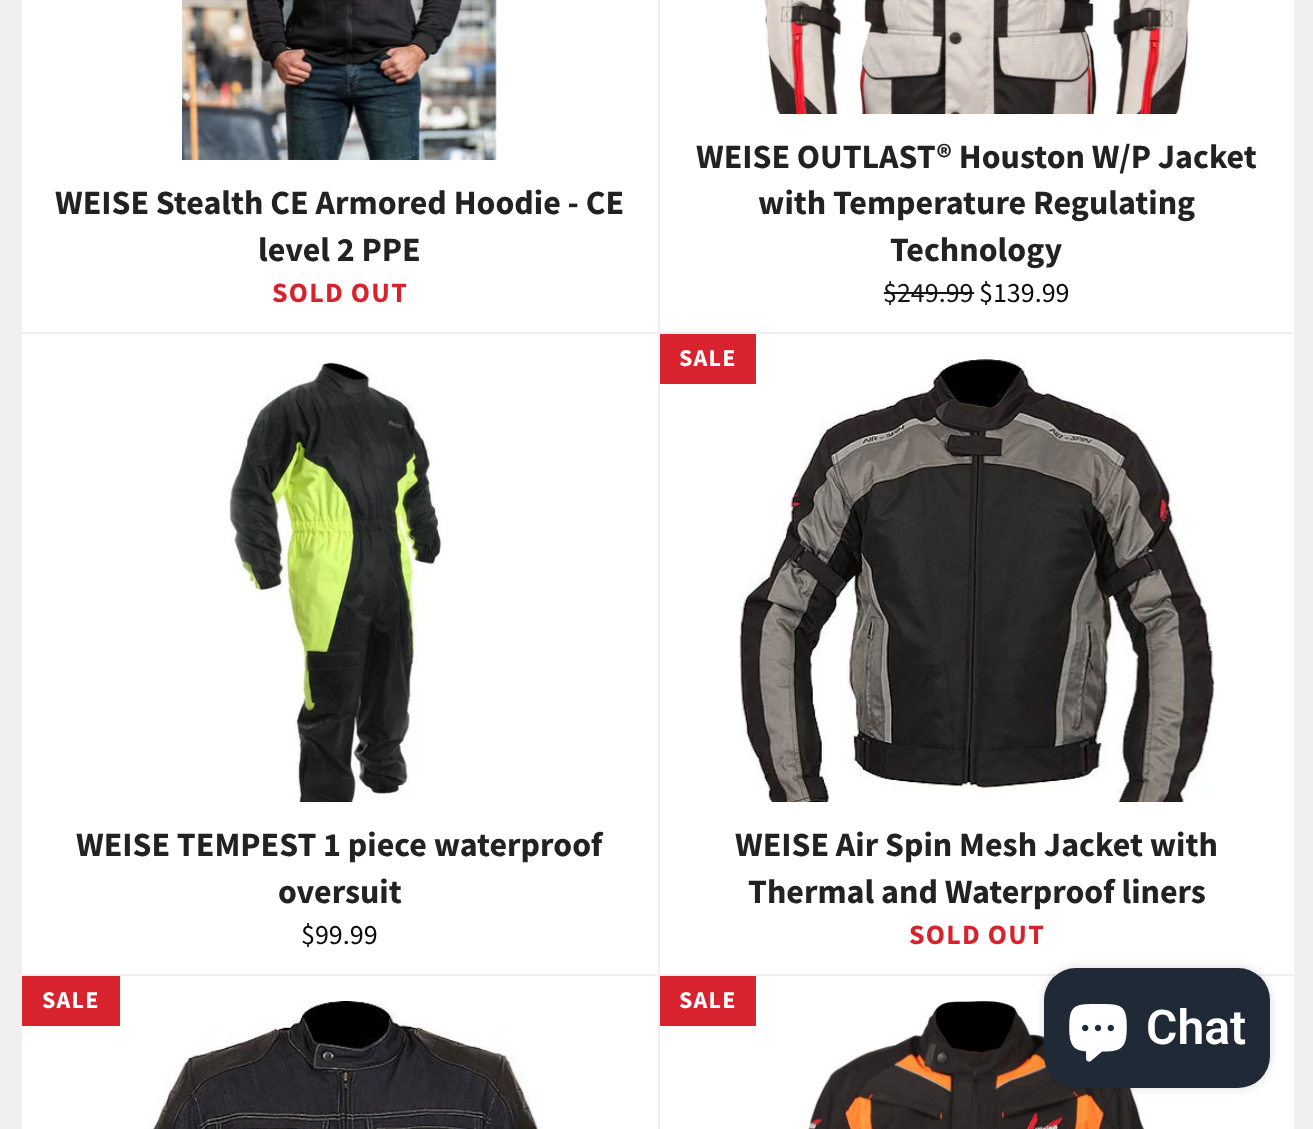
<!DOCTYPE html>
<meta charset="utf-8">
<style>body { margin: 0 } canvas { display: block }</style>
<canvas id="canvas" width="1313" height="1129"></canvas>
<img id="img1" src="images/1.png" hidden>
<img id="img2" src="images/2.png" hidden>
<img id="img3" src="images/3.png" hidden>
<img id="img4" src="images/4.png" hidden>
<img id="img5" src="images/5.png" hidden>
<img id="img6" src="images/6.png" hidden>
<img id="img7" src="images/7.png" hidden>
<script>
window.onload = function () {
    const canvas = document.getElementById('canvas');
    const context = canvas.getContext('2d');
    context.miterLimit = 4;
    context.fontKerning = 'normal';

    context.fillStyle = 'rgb(240, 240, 240)';
    context.fillRect(0, 0, 1313, 1129);
    context.fillStyle = 'rgb(255, 255, 255)';
    context.fillRect(22, 0, 636, 332);
    context.drawImage(document.getElementById('img1'), 182, 0, 315, 160);
    context.fillRect(660, 0, 634, 332);
    context.drawImage(document.getElementById('img2'), 764, 0, 426, 114);
    context.fillStyle = 'rgb(22, 22, 22)';
    context.fillRect(884, 292, 90, 2);
    context.fillStyle = 'rgb(255, 255, 255)';
    context.fillRect(22, 334, 636, 640);
    context.drawImage(document.getElementById('img3'), 229, 362, 212, 440);
    context.fillRect(660, 334, 634, 640);
    context.drawImage(document.getElementById('img4'), 739, 359, 475, 443);
    context.fillStyle = 'rgb(216, 35, 47)';
    context.fillRect(660, 334, 96, 50);
    context.fillStyle = 'rgb(255, 255, 255)';
    context.fillRect(22, 976, 636, 153);
    context.fillStyle = 'rgb(216, 35, 47)';
    context.fillRect(22, 976, 98, 50);
    context.drawImage(document.getElementById('img5'), 148, 1001, 393, 128);
    context.fillStyle = 'rgb(255, 255, 255)';
    context.fillRect(660, 976, 634, 153);
    context.fillStyle = 'rgb(216, 35, 47)';
    context.fillRect(660, 976, 96, 50);
    context.drawImage(document.getElementById('img6'), 808, 1001, 338, 128);
    context.fillStyle = 'rgba(0, 0, 0, 0.15)';
    context.filter = 'blur(5px)';
    context.beginPath();
    context.roundRect(1044, 968, 226, 120, 32);
    context.fill();
    context.filter = 'none';
    context.fillStyle = 'rgb(32, 42, 54)';
    context.beginPath();
    context.roundRect(1044, 968, 226, 120, 32);
    context.fill();
    context.drawImage(document.getElementById('img7'), 1069, 1004, 58, 58);
    context.font = 'bold 34px Source Sans Pro';
    context.fillStyle = 'rgb(34, 34, 34)';
    context.fillText('WEISE Stealth CE Armored Hoodie - CE', 55, 214);
    context.fillText('level 2 PPE', 258, 261);
    context.letterSpacing = '1.25px';
    context.font = 'bold 28px Source Sans Pro';
    context.fillStyle = 'rgb(216, 35, 47)';
    context.fillText('SOLD OUT', 272, 302);
    context.letterSpacing = '0px';
    context.font = 'bold 34px Source Sans Pro';
    context.fillStyle = 'rgb(34, 34, 34)';
    context.fillText('WEISE OUTLAST® Houston W/P Jacket', 696, 168);
    context.fillText('with Temperature Regulating', 758, 214);
    context.fillText('Technology', 890, 261);
    context.font = '28px Source Sans Pro';
    context.fillStyle = 'rgb(22, 22, 22)';
    context.fillText('$249.99', 883, 302);
    context.fillStyle = 'rgb(9, 9, 9)';
    context.fillText('$139.99', 979, 302);
    context.font = 'bold 34px Source Sans Pro';
    context.fillStyle = 'rgb(34, 34, 34)';
    context.fillText('WEISE TEMPEST 1 piece waterproof', 76, 856);
    context.fillText('oversuit', 278, 903);
    context.font = '28px Source Sans Pro';
    context.fillStyle = 'rgb(9, 9, 9)';
    context.fillText('$99.99', 301, 944);
    context.letterSpacing = '1.25px';
    context.font = 'bold 24px Source Sans Pro';
    context.fillStyle = 'rgb(255, 255, 255)';
    context.fillText('SALE', 679, 366);
    context.letterSpacing = '0px';
    context.font = 'bold 34px Source Sans Pro';
    context.fillStyle = 'rgb(34, 34, 34)';
    context.fillText('WEISE Air Spin Mesh Jacket with', 735, 856);
    context.fillText('Thermal and Waterproof liners', 748, 903);
    context.letterSpacing = '1.25px';
    context.font = 'bold 28px Source Sans Pro';
    context.fillStyle = 'rgb(216, 35, 47)';
    context.fillText('SOLD OUT', 909, 944);
    context.font = 'bold 24px Source Sans Pro';
    context.fillStyle = 'rgb(255, 255, 255)';
    context.fillText('SALE', 42, 1008);
    context.fillText('SALE', 679, 1008);
    context.letterSpacing = '0px';
    context.font = '600 48px Roboto';
    context.fillText('Chat', 1146, 1044);
};
</script>
